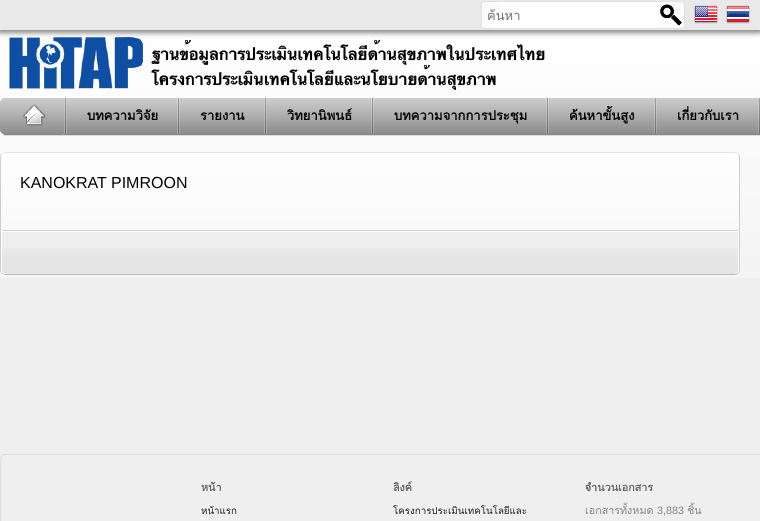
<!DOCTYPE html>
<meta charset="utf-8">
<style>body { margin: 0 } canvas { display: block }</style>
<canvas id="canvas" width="760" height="521"></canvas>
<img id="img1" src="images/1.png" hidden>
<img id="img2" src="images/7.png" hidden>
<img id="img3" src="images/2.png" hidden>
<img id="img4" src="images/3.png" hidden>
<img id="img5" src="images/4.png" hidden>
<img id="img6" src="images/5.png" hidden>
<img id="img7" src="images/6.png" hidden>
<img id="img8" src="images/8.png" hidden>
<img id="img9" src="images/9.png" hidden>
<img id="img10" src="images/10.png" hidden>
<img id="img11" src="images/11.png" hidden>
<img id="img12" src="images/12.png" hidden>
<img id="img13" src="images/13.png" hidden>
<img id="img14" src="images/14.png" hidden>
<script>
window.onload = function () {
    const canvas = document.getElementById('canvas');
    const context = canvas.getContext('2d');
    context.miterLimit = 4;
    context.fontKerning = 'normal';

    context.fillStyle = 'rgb(239, 239, 239)';
    context.fillRect(0, 0, 760, 521);
    context.drawImage(document.getElementById('img1'), 0, 30, 760, 248);
    context.drawImage(document.getElementById('img2'), 9, 37, 536, 53);
    context.fillStyle = 'rgb(136, 136, 136)';
    context.filter = 'blur(2.5px)';
    context.beginPath();
    context.rect(-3, -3, 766, 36);
    context.fill();
    context.filter = 'none';
    context.fillStyle = 'rgb(233, 233, 233)';
    context.fillRect(0, 0, 760, 30);
    context.fillStyle = 'rgb(255, 255, 255)';
    context.beginPath();
    context.roundRect(481.5, 1.5, 203, 27, 3.5);
    context.fill();
    context.strokeStyle = 'rgb(223, 223, 223)';
    context.stroke();
    context.fillRect(482, 3, 1, 24);
    context.drawImage(document.getElementById('img3'), 483, 3, 20, 24);
    context.drawImage(document.getElementById('img4'), 660, 3, 22, 24);
    context.drawImage(document.getElementById('img5'), 660, 4, 22, 22);
    context.drawImage(document.getElementById('img6'), 694, 5, 24, 19);
    context.drawImage(document.getElementById('img7'), 726, 5, 24, 19);
    context.drawImage(document.getElementById('img8'), 0, 98, 760, 38);
    context.drawImage(document.getElementById('img9'), 64, 98, 3, 36);
    context.drawImage(document.getElementById('img10'), 22, 104, 24, 22);
    context.drawImage(document.getElementById('img9'), 177, 98, 3, 36);
    context.drawImage(document.getElementById('img9'), 264, 98, 3, 36);
    context.drawImage(document.getElementById('img9'), 371, 98, 3, 36);
    context.drawImage(document.getElementById('img9'), 546, 98, 3, 36);
    context.drawImage(document.getElementById('img9'), 654, 98, 3, 36);
    context.drawImage(document.getElementById('img11'), 758, 98, 2, 36);
    context.beginPath();
    context.moveTo(2, 154);
    context.lineTo(5, 152.5);
    context.lineTo(735, 152.5);
    context.lineTo(738, 154);
    context.strokeStyle = 'rgb(228, 228, 228)';
    context.stroke();
    context.beginPath();
    context.moveTo(738, 154);
    context.bezierCurveTo(739, 154.5, 739.5, 156, 739.5, 157);
    context.lineTo(739.5, 270);
    context.bezierCurveTo(739.5, 271, 739, 272.5, 738, 273);
    context.strokeStyle = 'rgb(204, 204, 204)';
    context.stroke();
    context.beginPath();
    context.moveTo(738, 273);
    context.lineTo(735, 274.5);
    context.lineTo(5, 274.5);
    context.lineTo(2, 273);
    context.strokeStyle = 'rgb(187, 187, 187)';
    context.stroke();
    context.beginPath();
    context.moveTo(2, 273);
    context.bezierCurveTo(1, 272.5, 0.5, 271, 0.5, 270);
    context.lineTo(0.5, 157);
    context.bezierCurveTo(0.5, 156, 1, 154.5, 2, 154);
    context.strokeStyle = 'rgb(204, 204, 204)';
    context.stroke();
    context.drawImage(document.getElementById('img12'), 1, 153, 738, 121);
    context.beginPath();
    context.moveTo(6, 153);
    context.lineTo(734, 153);
    context.bezierCurveTo(737, 153, 739, 155, 739, 158);
    context.lineTo(739, 269);
    context.bezierCurveTo(739, 272, 737, 274, 734, 274);
    context.lineTo(6, 274);
    context.bezierCurveTo(3, 274, 1, 272, 1, 269);
    context.lineTo(1, 158);
    context.bezierCurveTo(1, 155, 3, 153, 6, 153);
    context.closePath();
    context.moveTo(6, 154);
    context.lineTo(734, 154);
    context.bezierCurveTo(736, 154, 738, 156, 738, 158);
    context.lineTo(738, 269);
    context.bezierCurveTo(738, 272, 736, 274, 734, 274);
    context.lineTo(6, 274);
    context.bezierCurveTo(4, 274, 2, 272, 2, 269);
    context.lineTo(2, 158);
    context.bezierCurveTo(2, 156, 4, 154, 6, 154);
    context.closePath();
    context.fill('evenodd');
    context.drawImage(document.getElementById('img13'), 2, 230, 736, 2);
    context.fillStyle = 'rgb(238, 238, 238)';
    context.beginPath();
    context.roundRect(2, 232, 736, 42, [0, 0, 5, 5]);
    context.fill();
    context.drawImage(document.getElementById('img14'), 2, 248, 736, 26);
    context.beginPath();
    context.roundRect(0.5, 454.5, 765, 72, 4.5);
    context.strokeStyle = 'rgb(221, 221, 221)';
    context.stroke();
    context.save();
    context.beginPath();
    context.rect(487, 5, 167, 21);
    context.clip();
    context.font = '13px Loma';
    context.fillStyle = 'rgb(117, 117, 117)';
    context.fillText('ค้นหา', 487, 20);
    context.restore();
    context.font = 'bold 13px Loma';
    context.fillStyle = 'rgb(0, 0, 0)';
    context.fillText('บทความวิจัย', 87, 120);
    context.fillText('รายงาน', 200, 120);
    context.fillText('วิทยานิพนธ์', 287, 120);
    context.fillText('บทความจากการประชุม', 394, 120);
    context.fillText('ค้นหาขั้นสูง', 569, 120);
    context.fillText('เกี่ยวกับเรา', 677, 120);
    context.font = '16px Liberation Sans';
    context.fillText('KANOKRAT PIMROON', 20, 188);
    context.font = 'bold 10.75px Loma';
    context.fillStyle = 'rgb(102, 102, 102)';
    context.fillText('หน้า', 201, 491);
    context.font = '9.75px Loma';
    context.fillStyle = 'rgb(34, 34, 34)';
    context.fillText('หน้าแรก', 201, 514);
    context.font = 'bold 10.75px Loma';
    context.fillStyle = 'rgb(102, 102, 102)';
    context.fillText('ลิงค์', 393, 491);
    context.font = '9.75px Loma';
    context.fillStyle = 'rgb(34, 34, 34)';
    context.fillText('โครงการประเมินเทคโนโลยีและ', 393, 514);
    context.font = 'bold 10.75px Loma';
    context.fillStyle = 'rgb(102, 102, 102)';
    context.fillText('จำนวนเอกสาร', 585, 491);
    context.font = '10.75px Loma';
    context.fillStyle = 'rgb(136, 136, 136)';
    context.fillText('เอกสารทั้งหมด', 585, 514);
    context.font = '10.75px Liberation Sans';
    context.fillText('3,883', 657, 514);
    context.font = '10.75px Loma';
    context.fillText('ชิ้น', 687, 514);
};
</script>
